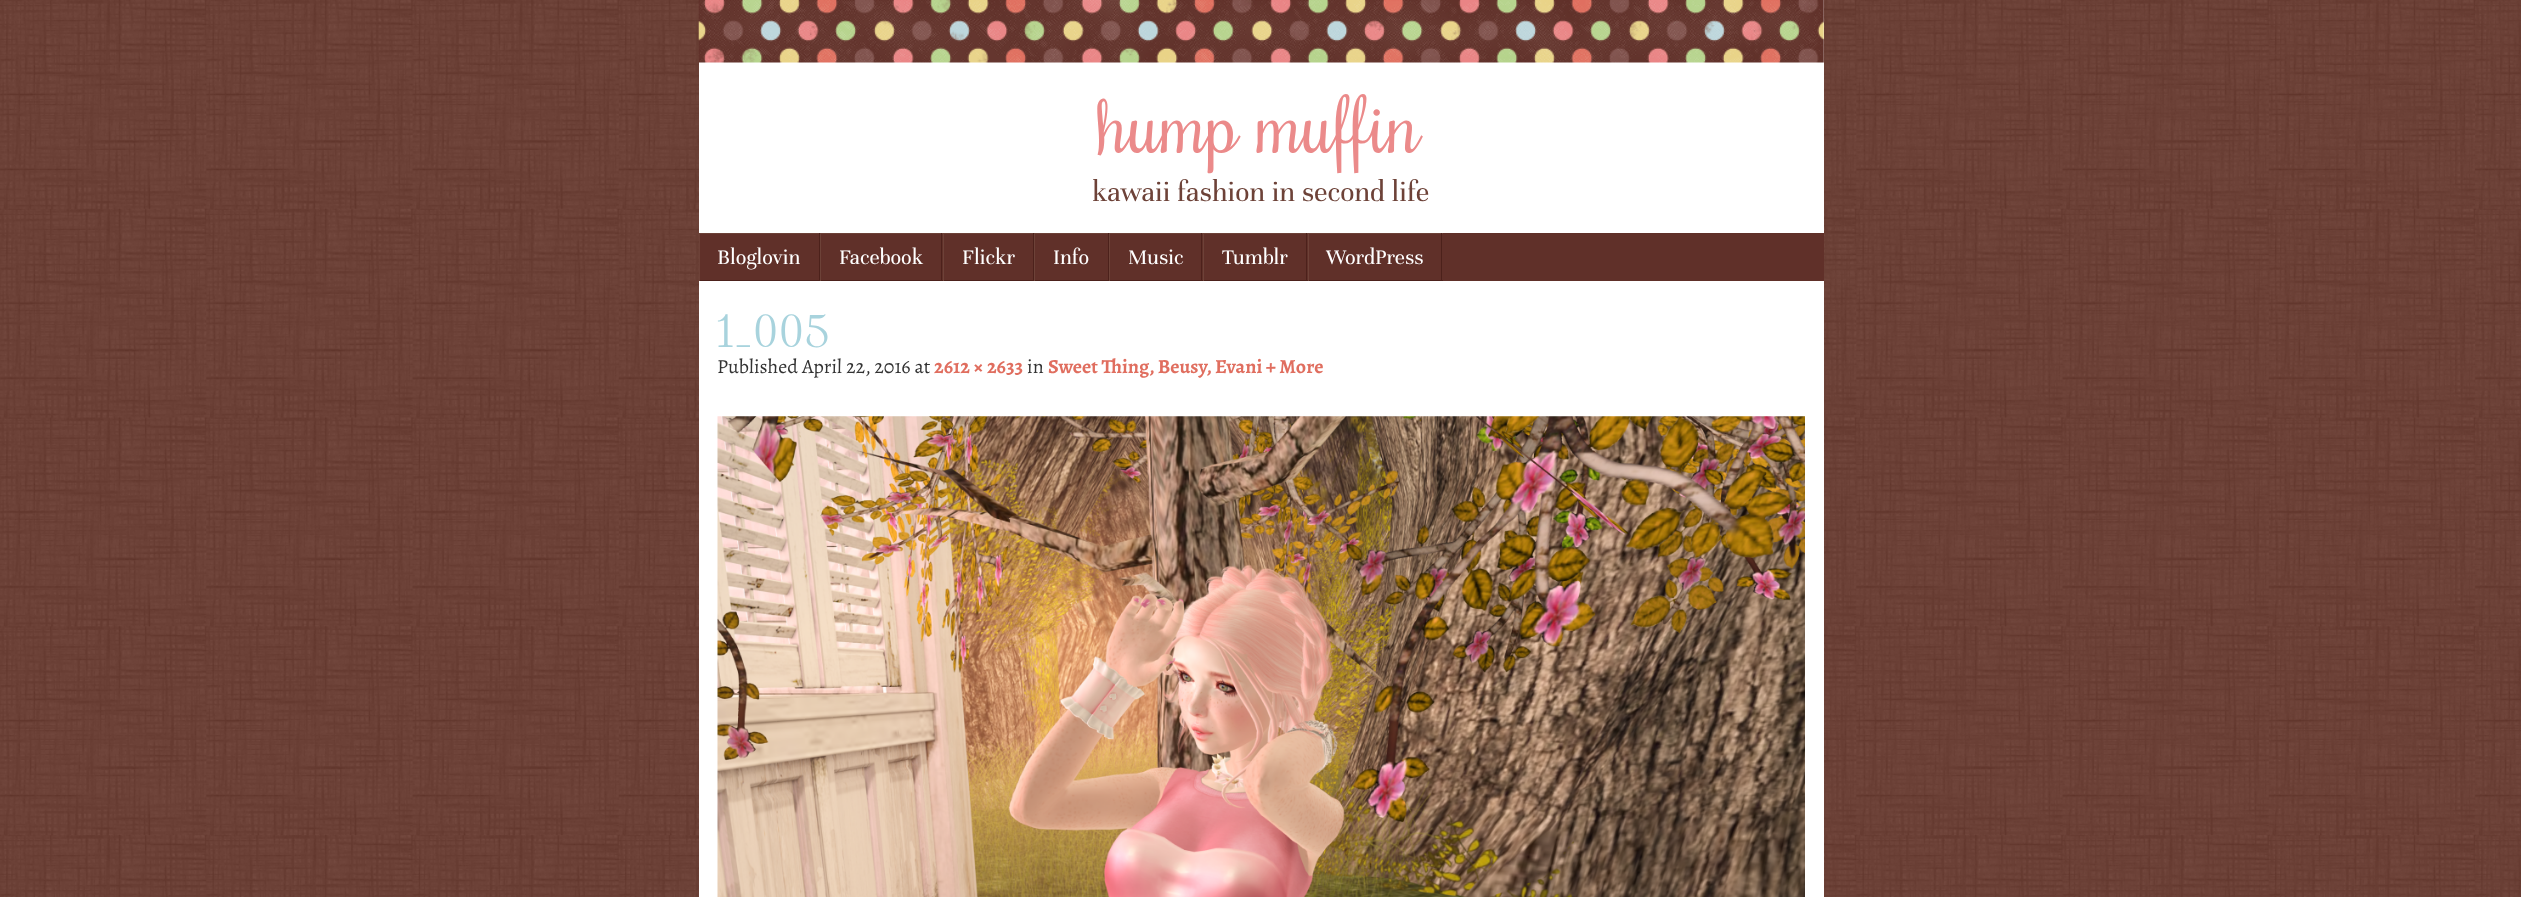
<!DOCTYPE html>
<meta charset="utf-8">
<style>body { margin: 0 } canvas { display: block }</style>
<canvas id="canvas" width="2521" height="897"></canvas>
<img id="img1" src="images/1.png" hidden>
<img id="img2" src="images/2.png" hidden>
<img id="img3" src="images/3.png" hidden>
<script>
window.onload = function () {
    const canvas = document.getElementById('canvas');
    const context = canvas.getContext('2d');
    context.miterLimit = 4;
    context.fontKerning = 'normal';

    context.fillStyle = 'rgb(255, 255, 255)';
    context.fillRect(0, 0, 2521, 897);
    context.drawImage(document.getElementById('img1'), 0, 0, 2521, 897);
    context.fillRect(699, 0, 1125, 897);
    context.drawImage(document.getElementById('img2'), 698, 0, 1126, 63);
    context.fillStyle = 'rgb(96, 48, 41)';
    context.fillRect(700, 233, 1124, 48);
    context.fillStyle = 'rgb(109, 66, 56)';
    context.fillRect(699, 233, 744, 1);
    context.fillStyle = 'rgb(76, 33, 27)';
    context.fillRect(819, 233, 1, 48);
    context.fillRect(699, 280, 121, 1);
    context.fillStyle = 'rgb(109, 66, 56)';
    context.fillRect(699, 233, 1, 48);
    context.fillStyle = 'rgb(76, 33, 27)';
    context.fillRect(941, 233, 1, 48);
    context.fillRect(820, 280, 123, 1);
    context.fillStyle = 'rgb(109, 66, 56)';
    context.fillRect(820, 233, 1, 48);
    context.fillStyle = 'rgb(76, 33, 27)';
    context.fillRect(1033, 233, 1, 48);
    context.fillRect(943, 280, 91, 1);
    context.fillStyle = 'rgb(109, 66, 56)';
    context.fillRect(943, 233, 1, 48);
    context.fillStyle = 'rgb(76, 33, 27)';
    context.fillRect(1108, 233, 1, 48);
    context.fillRect(1034, 280, 75, 1);
    context.fillStyle = 'rgb(109, 66, 56)';
    context.fillRect(1034, 233, 1, 48);
    context.fillStyle = 'rgb(76, 33, 27)';
    context.fillRect(1201, 233, 1, 48);
    context.fillRect(1109, 280, 94, 1);
    context.fillStyle = 'rgb(109, 66, 56)';
    context.fillRect(1109, 233, 1, 48);
    context.fillStyle = 'rgb(76, 33, 27)';
    context.fillRect(1306, 233, 1, 48);
    context.fillRect(1203, 280, 105, 1);
    context.fillStyle = 'rgb(109, 66, 56)';
    context.fillRect(1203, 233, 1, 48);
    context.fillStyle = 'rgb(76, 33, 27)';
    context.fillRect(1441, 233, 1, 48);
    context.fillRect(1308, 280, 135, 1);
    context.fillStyle = 'rgb(109, 66, 56)';
    context.fillRect(1308, 233, 1, 48);
    context.drawImage(document.getElementById('img3'), 717, 416, 1088, 481);
    context.font = '81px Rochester';
    context.fillStyle = 'rgb(235, 138, 138)';
    context.fillText('hump muffin', 1099, 153);
    context.font = '30px Unna';
    context.fillStyle = 'rgb(109, 66, 56)';
    context.fillText('kawaii fashion in second life', 1092, 201);
    context.font = '22.5px Unna';
    context.fillStyle = 'rgb(255, 255, 255)';
    context.fillText('Bloglovin', 717, 264);
    context.fillText('Facebook', 839, 264);
    context.fillText('Flickr', 962, 264);
    context.fillText('Info', 1053, 264);
    context.fillText('Music', 1128, 264);
    context.fillText('Tumblr', 1222, 264);
    context.fillText('WordPress', 1326, 264);
    context.font = '45px Rochester';
    context.fillStyle = 'rgb(168, 211, 221)';
    context.fillText('1_005', 717, 347);
    context.font = '20px Alegreya';
    context.fillStyle = 'rgb(51, 51, 51)';
    context.fillText('Published April 22, 2016 at', 717, 373);
    context.font = 'bold 20px Alegreya';
    context.fillStyle = 'rgb(224, 110, 95)';
    context.fillText('2612 × 2633', 934, 373);
    context.font = '20px Alegreya';
    context.fillStyle = 'rgb(51, 51, 51)';
    context.fillText('in', 1027, 373);
    context.font = 'bold 20px Alegreya';
    context.fillStyle = 'rgb(224, 110, 95)';
    context.fillText('Sweet Thing, Beusy, Evani + More', 1048, 373);
};
</script>
